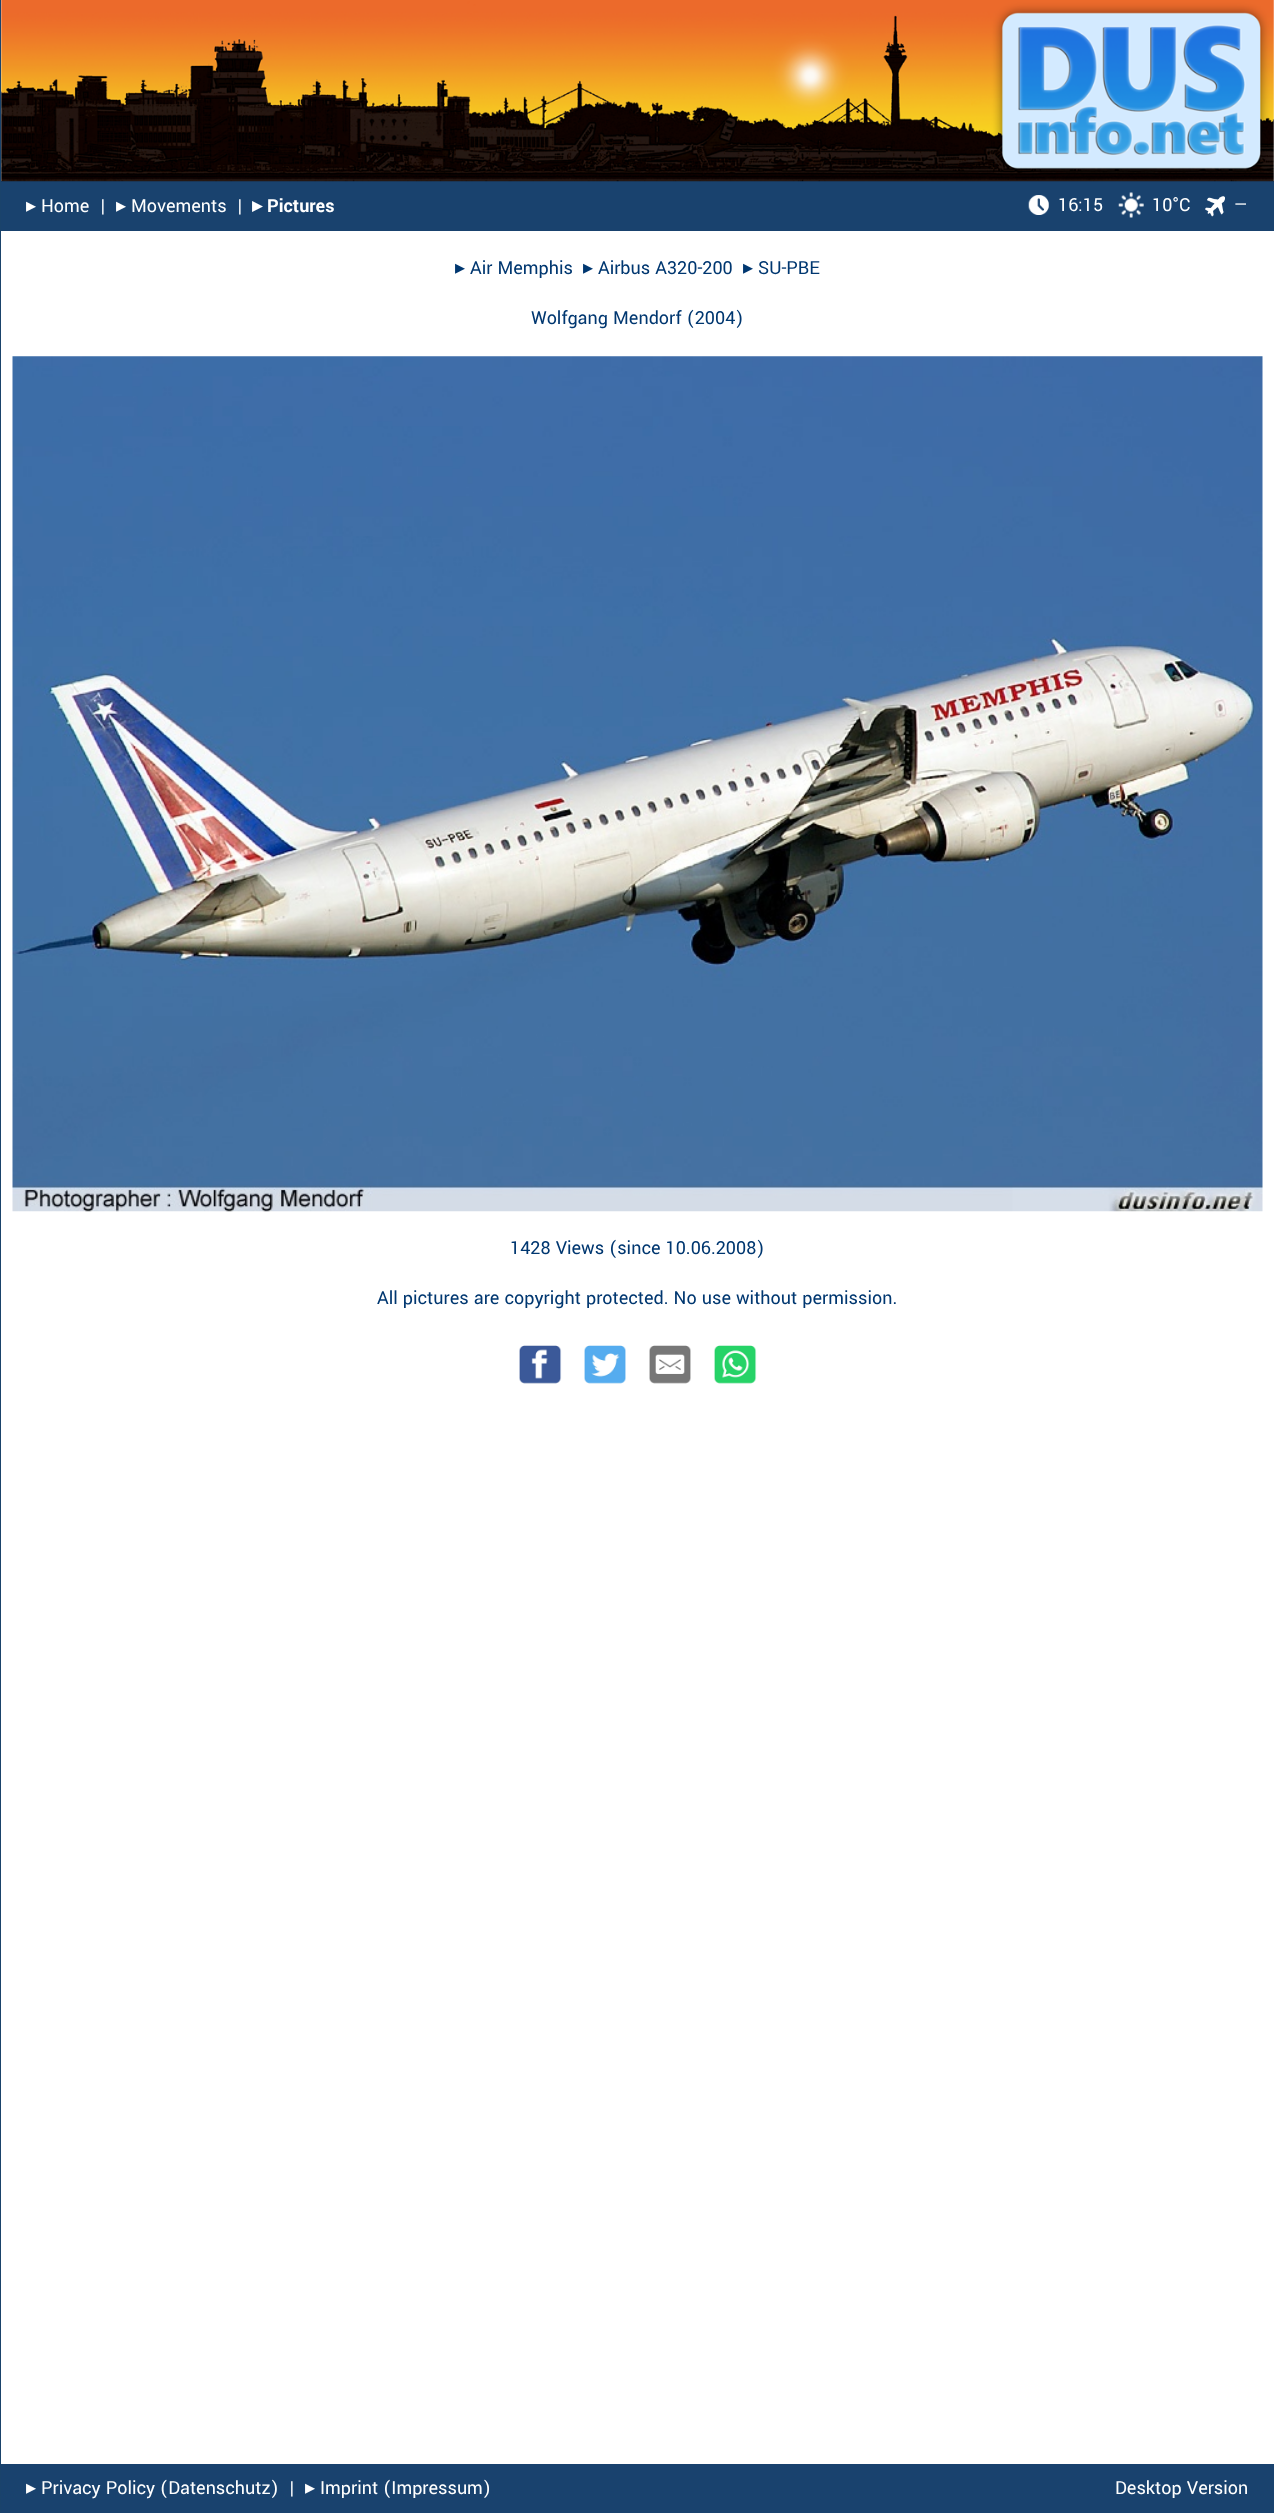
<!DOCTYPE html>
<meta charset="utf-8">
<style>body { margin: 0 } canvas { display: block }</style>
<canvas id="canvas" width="1274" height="2513"></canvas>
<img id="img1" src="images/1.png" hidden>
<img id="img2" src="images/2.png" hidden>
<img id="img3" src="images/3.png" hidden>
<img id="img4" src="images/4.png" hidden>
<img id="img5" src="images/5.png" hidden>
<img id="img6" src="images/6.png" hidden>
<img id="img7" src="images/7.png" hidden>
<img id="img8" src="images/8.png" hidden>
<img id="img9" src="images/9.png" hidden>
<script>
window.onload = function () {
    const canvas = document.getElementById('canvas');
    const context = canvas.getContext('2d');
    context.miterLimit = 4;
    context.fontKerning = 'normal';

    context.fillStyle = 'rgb(255, 255, 255)';
    context.fillRect(0, 0, 1274, 2513);
    context.fillStyle = 'rgb(26, 67, 107)';
    context.fillRect(0, 0, 1, 2513);
    context.fillStyle = 'rgb(25, 66, 110)';
    context.fillRect(1, 181, 1273, 50);
    context.drawImage(document.getElementById('img1'), 1, 0, 1273, 182);
    context.drawImage(document.getElementById('img2'), 1028, 195, 21, 20);
    context.drawImage(document.getElementById('img3'), 1118, 192, 26, 26);
    context.drawImage(document.getElementById('img4'), 1205, 196, 20, 21);
    context.drawImage(document.getElementById('img5'), 12, 356, 1251, 856);
    context.drawImage(document.getElementById('img6'), 519, 1345, 43, 39);
    context.drawImage(document.getElementById('img7'), 584, 1345, 42, 39);
    context.drawImage(document.getElementById('img8'), 649, 1345, 42, 39);
    context.drawImage(document.getElementById('img9'), 714, 1345, 43, 39);
    context.fillRect(1, 2464, 1273, 49);
    context.font = '20px DejaVu Sans';
    context.fillStyle = 'rgb(255, 255, 255)';
    context.fillText('▸︎', 26, 212);
    context.font = '20px Yantramanav';
    context.fillText('Home', 41, 212);
    context.fillText('|', 100, 212);
    context.font = '20px DejaVu Sans';
    context.fillText('▸︎', 116, 212);
    context.font = '20px Yantramanav';
    context.fillText('Movements', 131, 212);
    context.fillText('|', 237, 212);
    context.font = 'bold 20px DejaVu Sans';
    context.fillText('▸︎', 252, 212);
    context.font = 'bold 20px Yantramanav';
    context.fillText('Pictures', 267, 212);
    context.font = '20px Yantramanav';
    context.fillText('16:15', 1058, 211);
    context.fillText('10°C', 1152, 211);
    context.fillText('—', 1234, 211);
    context.font = '20px DejaVu Sans';
    context.fillStyle = 'rgb(0, 55, 112)';
    context.fillText('▸︎', 455, 274);
    context.font = '20px Yantramanav';
    context.fillText('Air Memphis', 470, 274);
    context.font = '20px DejaVu Sans';
    context.fillText('▸︎', 583, 274);
    context.font = '20px Yantramanav';
    context.fillText('Airbus A320-200', 598, 274);
    context.font = '20px DejaVu Sans';
    context.fillText('▸︎', 743, 274);
    context.font = '20px Yantramanav';
    context.fillText('SU-PBE', 758, 274);
    context.fillText('Wolfgang Mendorf (2004)', 531, 324);
    context.fillText('1428 Views (since 10.06.2008)', 510, 1254);
    context.fillText('All pictures are copyright protected. No use without permission.', 377, 1304);
    context.font = '20px DejaVu Sans';
    context.fillStyle = 'rgb(255, 255, 255)';
    context.fillText('▸︎', 26, 2494);
    context.font = '20px Yantramanav';
    context.fillText('Privacy Policy (Datenschutz)', 41, 2494);
    context.fillText('|', 289, 2494);
    context.font = '20px DejaVu Sans';
    context.fillText('▸︎', 305, 2494);
    context.font = '20px Yantramanav';
    context.fillText('Imprint (Impressum)', 320, 2494);
    context.fillText('Desktop Version', 1115, 2494);
};
</script>
